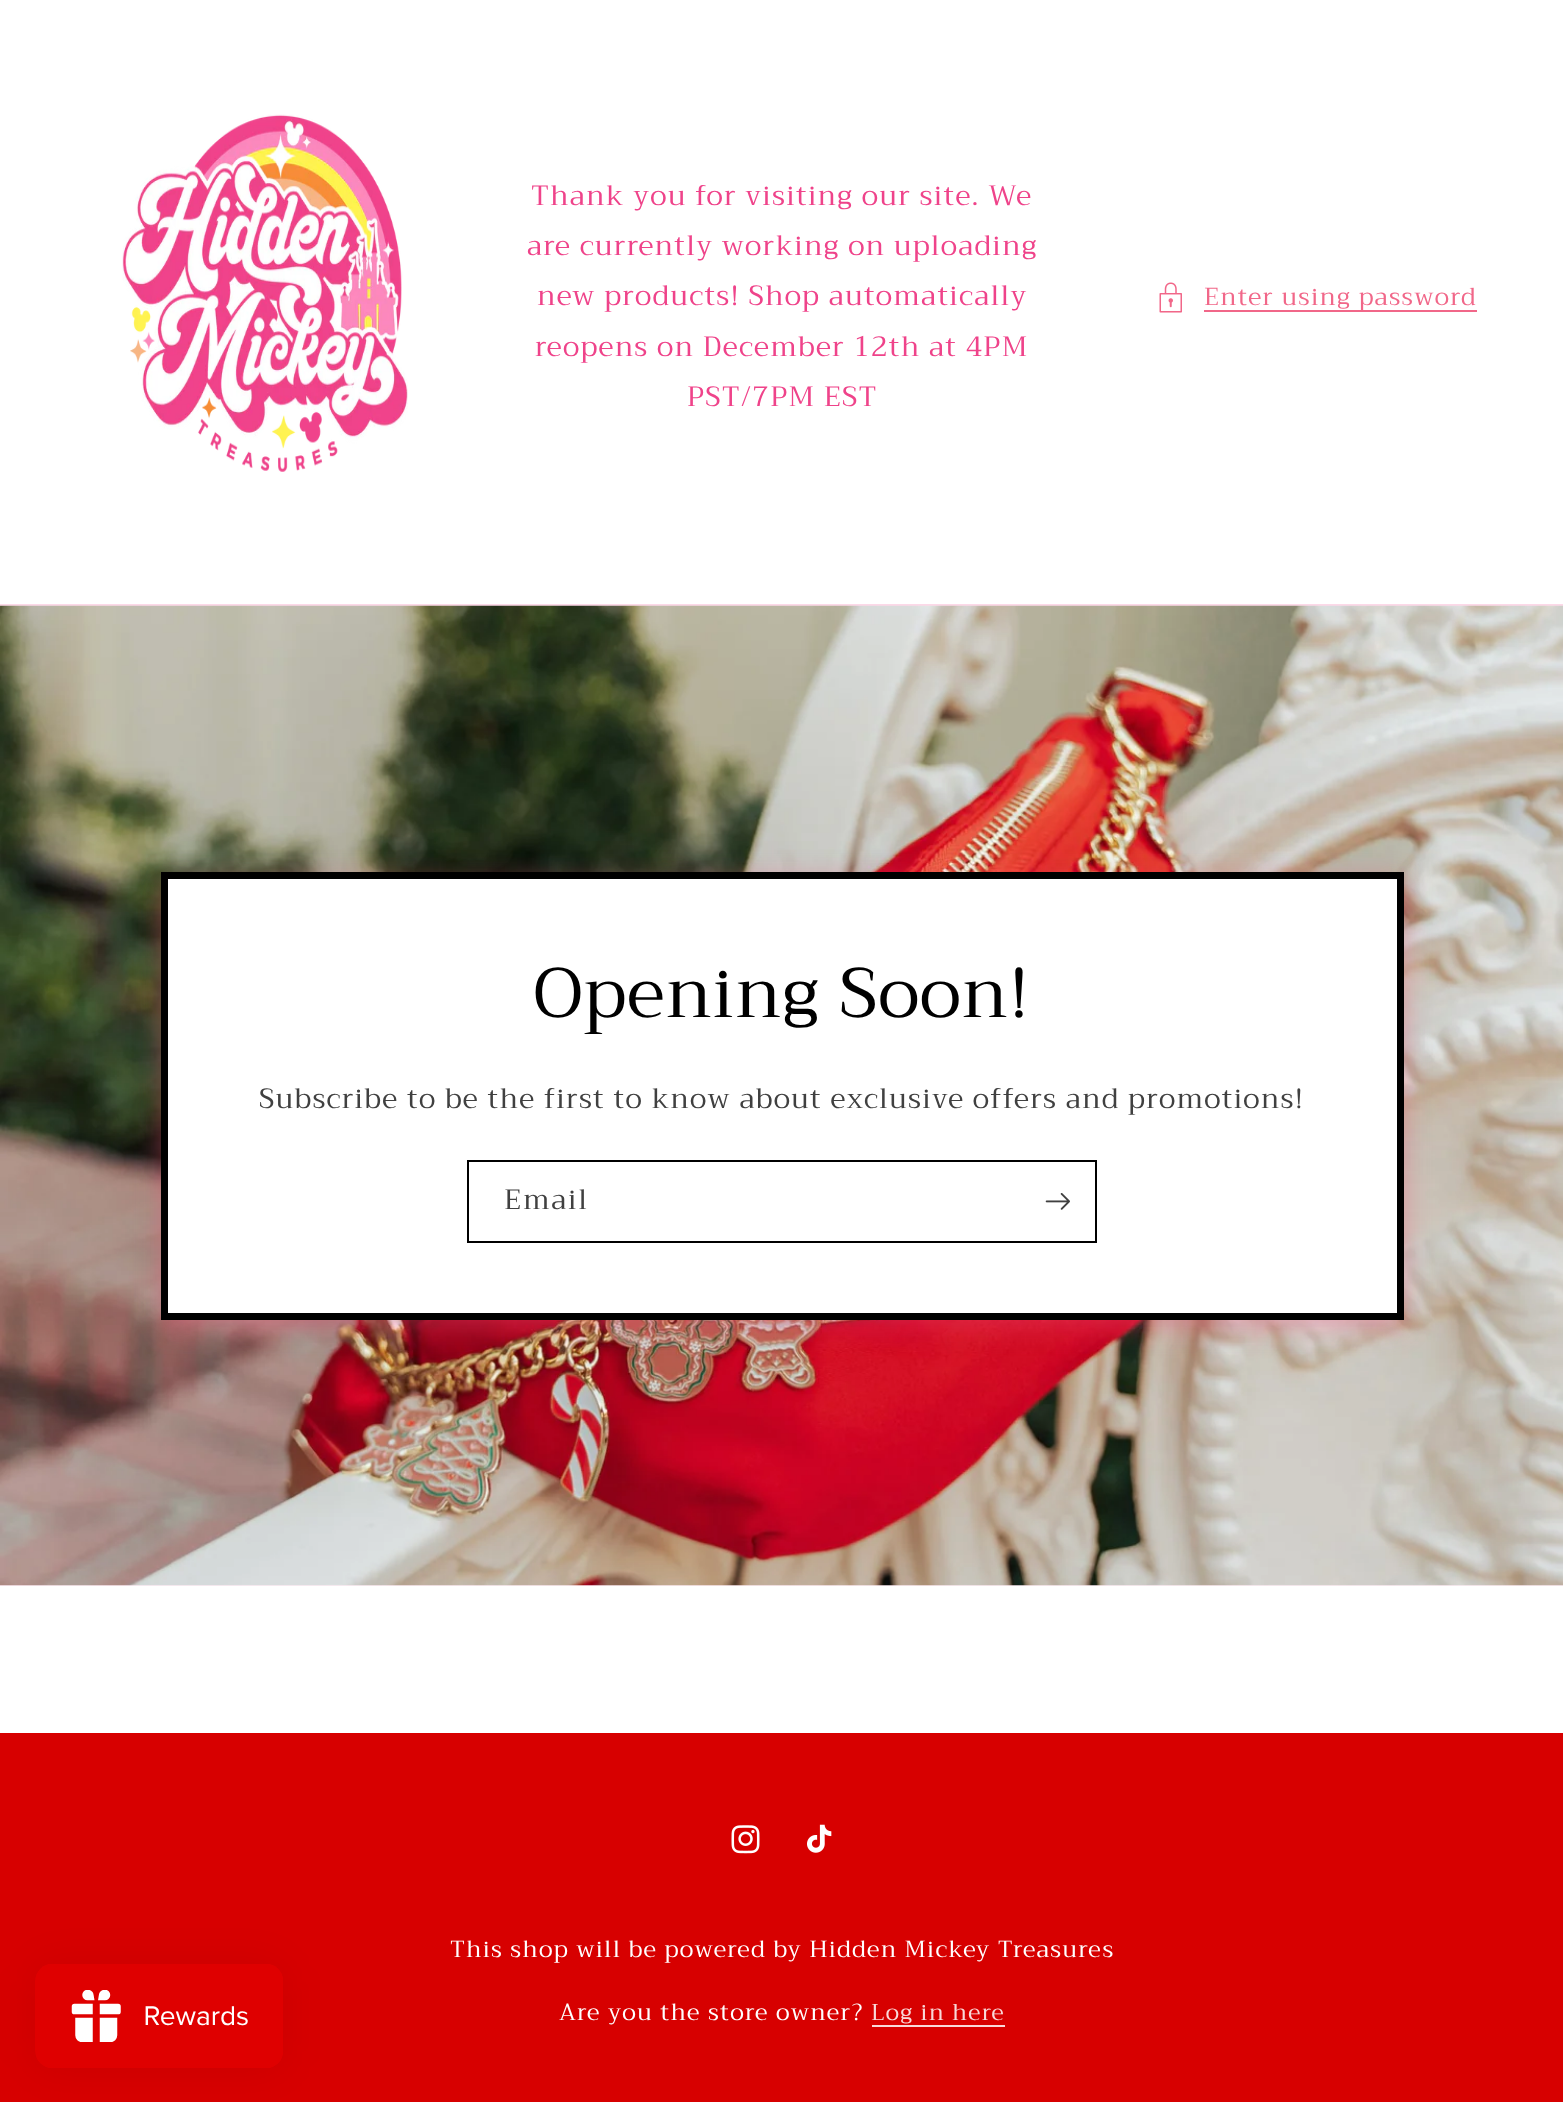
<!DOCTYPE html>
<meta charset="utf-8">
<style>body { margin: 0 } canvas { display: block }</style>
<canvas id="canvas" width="1563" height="2102"></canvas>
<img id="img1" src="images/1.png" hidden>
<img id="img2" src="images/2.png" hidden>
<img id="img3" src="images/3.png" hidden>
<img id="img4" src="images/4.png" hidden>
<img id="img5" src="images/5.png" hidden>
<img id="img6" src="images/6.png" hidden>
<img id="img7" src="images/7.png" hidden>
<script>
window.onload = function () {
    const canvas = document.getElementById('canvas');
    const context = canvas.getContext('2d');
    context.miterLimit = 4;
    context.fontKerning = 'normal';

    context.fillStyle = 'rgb(255, 255, 255)';
    context.fillRect(0, 0, 1563, 2102);
    context.drawImage(document.getElementById('img1'), 122, 114, 286, 358);
    context.drawImage(document.getElementById('img2'), 1159, 282, 23, 31);
    context.fillStyle = 'rgb(241, 103, 137)';
    context.fillRect(1204, 310, 273, 2);
    context.fillStyle = 'rgb(252, 217, 232)';
    context.fillRect(0, 604, 1563, 2);
    context.fillStyle = 'rgb(254, 237, 244)';
    context.fillRect(0, 1585, 1563, 1);
    context.drawImage(document.getElementById('img3'), 0, 605, 1563, 981);
    context.fillStyle = 'rgb(255, 255, 255)';
    context.beginPath();
    context.rect(164.5, 875.5, 1236, 441);
    context.fill();
    context.strokeStyle = 'rgb(0, 0, 0)';
    context.lineWidth = 7;
    context.stroke();
    context.save();
    context.beginPath();
    context.moveTo(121, 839);
    context.lineTo(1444, 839);
    context.lineTo(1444, 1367);
    context.lineTo(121, 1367);
    context.closePath();
    context.moveTo(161, 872);
    context.lineTo(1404, 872);
    context.lineTo(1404, 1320);
    context.lineTo(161, 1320);
    context.closePath();
    context.clip('evenodd');
    context.fillStyle = 'rgba(239, 76, 116, 0.4)';
    context.filter = 'blur(13px)';
    context.beginPath();
    context.rect(161, 879, 1243, 448);
    context.fill();
    context.filter = 'none';
    context.restore();
    context.lineWidth = 2;
    context.strokeRect(468, 1161, 628, 81);
    context.drawImage(document.getElementById('img4'), 1045, 1193, 25, 17);
    context.fillStyle = 'rgb(215, 0, 0)';
    context.fillRect(0, 1733, 1563, 369);
    context.fillStyle = 'rgba(0, 0, 0, 0.05)';
    context.filter = 'blur(22px)';
    context.beginPath();
    context.roundRect(35, 1964, 249, 105, 18);
    context.fill();
    context.filter = 'none';
    context.drawImage(document.getElementById('img5'), 35, 1964, 248, 104);
    context.drawImage(document.getElementById('img6'), 731, 1825, 29, 29);
    context.drawImage(document.getElementById('img7'), 807, 1824, 25, 29);
    context.fillStyle = 'rgb(249, 217, 217)';
    context.fillRect(872, 2025, 133, 2);
    context.letterSpacing = '1.22px';
    context.font = '28px Trirong';
    context.fillStyle = 'rgb(239, 67, 138)';
    context.fillText('Thank you for visiting our site. We', 531, 205);
    context.fillText('are currently working on uploading', 527, 255);
    context.fillText('new products! Shop automatically', 537, 305);
    context.fillText('reopens on December 12th at 4PM', 535, 356);
    context.fillText('PST/7PM EST', 687, 406);
    context.font = '24.5px Trirong';
    context.fillStyle = 'rgb(241, 103, 137)';
    context.fillText('Enter using password', 1204, 305);
    context.letterSpacing = '1px';
    context.font = '70px Trirong';
    context.fillStyle = 'rgb(0, 0, 0)';
    context.fillText('Opening Soon!', 533, 1017);
    context.letterSpacing = '1.22px';
    context.font = '28px Trirong';
    context.fillStyle = 'rgb(64, 64, 64)';
    context.fillText('Subscribe to be the first to know about exclusive offers and promotions!', 259, 1108);
    context.letterSpacing = '1.75px';
    context.fillText('Email', 504, 1209);
    context.letterSpacing = '1.22px';
    context.font = '23.3px Trirong';
    context.fillStyle = 'rgb(255, 255, 255)';
    context.fillText('This shop will be powered by Hidden Mickey Treasures', 450, 1957);
    context.fillText('Are you the store owner?', 559, 2020);
    context.font = '22.75px Trirong';
    context.fillStyle = 'rgb(249, 217, 217)';
    context.fillText('Log in here', 871, 2020);
};
</script>
